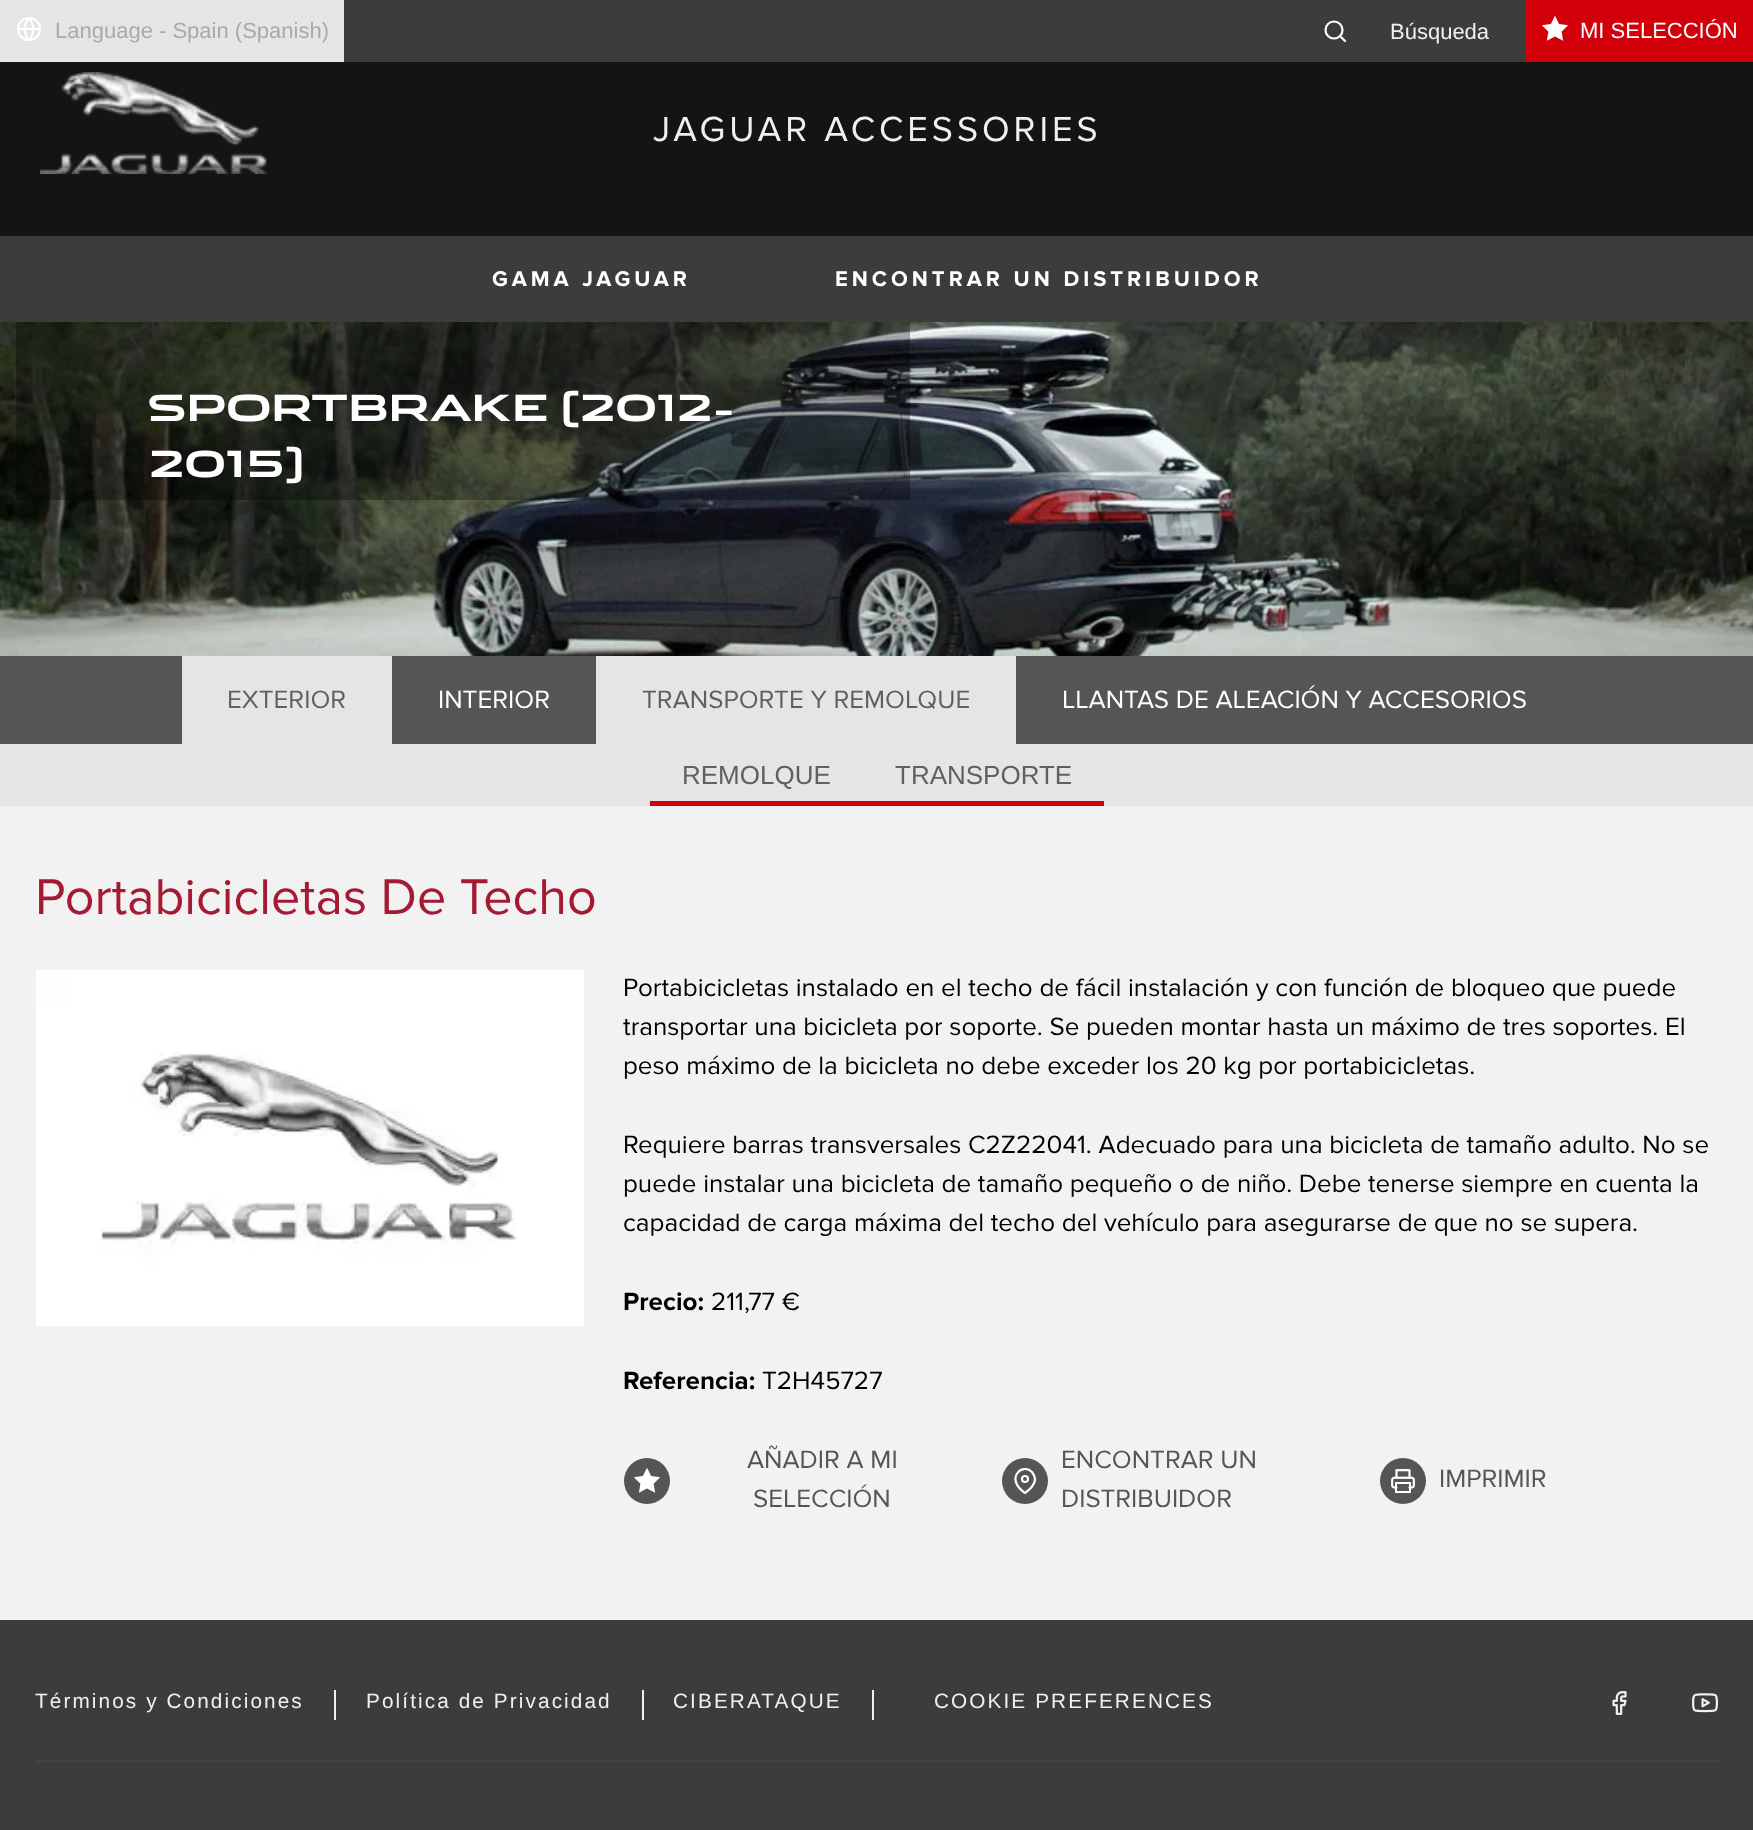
<!DOCTYPE html>
<meta charset="utf-8">
<style>body { margin: 0 } canvas { display: block }</style>
<canvas id="canvas" width="1753" height="1830"></canvas>
<img id="img1" src="images/1.png" hidden>
<img id="img2" src="images/2.png" hidden>
<img id="img3" src="images/3.png" hidden>
<img id="img4" src="images/4.png" hidden>
<img id="img5" src="images/5.png" hidden>
<img id="img6" src="images/6.png" hidden>
<img id="img7" src="images/7.png" hidden>
<img id="img8" src="images/8.png" hidden>
<img id="img9" src="images/9.png" hidden>
<script>
window.onload = function () {
    const canvas = document.getElementById('canvas');
    const context = canvas.getContext('2d');
    context.miterLimit = 4;
    context.fontKerning = 'normal';
    let gradient;

    context.fillStyle = 'rgb(20, 20, 20)';
    context.fillRect(0, 0, 1753, 1830);
    context.fillStyle = 'rgb(60, 60, 59)';
    context.fillRect(344, 0, 1182, 62);
    context.fillStyle = 'rgb(229, 229, 229)';
    context.fillRect(0, 0, 344, 62);
    context.drawImage(document.getElementById('img1'), 17, 17, 24, 24);
    context.beginPath();
    context.arc(1334, 30, 8.5, 0, 2 * Math.PI);
    context.strokeStyle = 'rgb(255, 255, 255)';
    context.lineWidth = 2.2;
    context.stroke();
    context.beginPath();
    context.moveTo(1345, 41);
    context.lineTo(1340, 36);
    context.lineCap = 'round';
    context.lineJoin = 'round';
    context.stroke();
    context.fillStyle = 'rgb(210, 0, 10)';
    context.fillRect(1526, 0, 227, 62);
    context.drawImage(document.getElementById('img2'), 1542, 16, 26, 25);
    context.drawImage(document.getElementById('img3'), 40, 72, 228, 102);
    context.fillStyle = 'rgb(60, 60, 59)';
    context.fillRect(0, 236, 1753, 86);
    context.drawImage(document.getElementById('img4'), 0, 322, 1753, 334);
    context.fillStyle = 'rgba(0, 0, 0, 0.3)';
    context.fillRect(16, 322, 894, 178);
    context.fillStyle = 'rgb(85, 85, 85)';
    context.fillRect(0, 656, 1753, 88);
    context.fillStyle = 'rgb(229, 229, 229)';
    context.fillRect(182, 656, 210, 88);
    context.fillRect(596, 656, 420, 88);
    context.fillRect(0, 744, 1753, 62);
    gradient = context.createLinearGradient(756, 744, 756, 806);
    gradient.addColorStop(0, 'rgb(229, 229, 229)');
    gradient.addColorStop(0.92, 'rgb(229, 229, 229)');
    gradient.addColorStop(0.92, 'rgb(210, 0, 10)');
    gradient.addColorStop(1, 'rgb(210, 0, 10)');
    context.fillStyle = gradient;
    context.fillRect(650, 801, 212, 5);
    gradient = context.createLinearGradient(983, 744, 983, 806);
    gradient.addColorStop(0, 'rgb(229, 229, 229)');
    gradient.addColorStop(0.92, 'rgb(229, 229, 229)');
    gradient.addColorStop(0.92, 'rgb(210, 0, 10)');
    gradient.addColorStop(1, 'rgb(210, 0, 10)');
    context.fillStyle = gradient;
    context.fillRect(862, 801, 242, 5);
    context.fillStyle = 'rgb(242, 242, 242)';
    context.fillRect(0, 806, 1753, 814);
    context.drawImage(document.getElementById('img5'), 36, 970, 548, 356);
    context.fillStyle = 'rgb(85, 85, 85)';
    context.beginPath();
    context.arc(647, 1481, 23, 0, 2 * Math.PI);
    context.fill();
    context.drawImage(document.getElementById('img6'), 634, 1468, 26, 25);
    context.beginPath();
    context.arc(1025, 1481, 23, 0, 2 * Math.PI);
    context.fill();
    context.beginPath();
    context.moveTo(1035, 1479);
    context.bezierCurveTo(1035, 1486.5, 1025, 1493, 1025, 1493);
    context.bezierCurveTo(1004.5, 1479, 1022, 1462, 1032, 1472);
    context.bezierCurveTo(1033.5, 1474, 1035, 1476.5, 1035, 1479);
    context.closePath();
    context.stroke();
    context.beginPath();
    context.arc(1025, 1479, 3, 0, 2 * Math.PI);
    context.stroke();
    context.beginPath();
    context.arc(1403, 1481, 23, 0, 2 * Math.PI);
    context.fill();
    context.drawImage(document.getElementById('img7'), 1391, 1469, 24, 24);
    context.fillStyle = 'rgb(60, 60, 59)';
    context.fillRect(0, 1620, 1753, 210);
    context.fillStyle = 'rgb(240, 240, 240)';
    context.fillRect(334, 1690, 2, 30);
    context.fillRect(642, 1690, 2, 30);
    context.fillRect(872, 1690, 2, 30);
    context.drawImage(document.getElementById('img8'), 1612, 1691, 15, 24);
    context.drawImage(document.getElementById('img9'), 1692, 1693, 26, 20);
    context.fillStyle = 'rgb(68, 68, 68)';
    context.fillRect(36, 1760, 1682, 2);
    context.font = '22px Liberation Sans';
    context.fillStyle = 'rgb(168, 170, 174)';
    context.fillText('Language - Spain (Spanish)', 55, 38);
    context.fillStyle = 'rgb(240, 240, 240)';
    context.fillText('Búsqueda', 1390, 39);
    context.fillStyle = 'rgb(255, 255, 255)';
    context.fillText('MI SELECCIÓN', 1580, 38);
    context.letterSpacing = '4px';
    context.font = '36px Proxima Nova';
    context.fillStyle = 'rgb(240, 240, 240)';
    context.fillText('JAGUAR ACCESSORIES', 653, 141);
    context.font = 'bold 22px Proxima Nova';
    context.fillStyle = 'rgb(255, 255, 255)';
    context.fillText('GAMA JAGUAR', 492, 286);
    context.fillText('ENCONTRAR UN DISTRIBUIDOR', 835, 286);
    context.letterSpacing = '0px';
    context.font = 'bold 36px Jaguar';
    context.fillText('SPORTBRAKE (2012-', 148, 421);
    context.fillText('2015)', 148, 477);
    context.font = '26px Proxima Nova';
    context.fillStyle = 'rgb(97, 95, 97)';
    context.fillText('EXTERIOR', 227, 708);
    context.fillStyle = 'rgb(255, 255, 255)';
    context.fillText('INTERIOR', 438, 708);
    context.fillStyle = 'rgb(97, 95, 97)';
    context.fillText('TRANSPORTE Y REMOLQUE', 642, 708);
    context.fillStyle = 'rgb(255, 255, 255)';
    context.fillText('LLANTAS DE ALEACIÓN Y ACCESORIOS', 1062, 708);
    context.font = '26px Liberation Sans';
    context.fillStyle = 'rgb(97, 95, 97)';
    context.fillText('REMOLQUE', 682, 784);
    context.fillText('TRANSPORTE', 895, 784);
    context.font = '52px Proxima Nova';
    context.fillStyle = 'rgb(165, 25, 51)';
    context.fillText('Portabicicletas De Techo', 35, 914);
    context.font = '26px Proxima Nova';
    context.fillStyle = 'rgb(0, 0, 0)';
    context.fillText('Portabicicletas instalado en el techo de fácil instalación y con función de bloqueo que puede', 623, 996);
    context.fillText('transportar una bicicleta por soporte. Se pueden montar hasta un máximo de tres soportes. El', 623, 1035);
    context.fillText('peso máximo de la bicicleta no debe exceder los 20 kg por portabicicletas.', 623, 1074);
    context.fillText('Requiere barras transversales C2Z22041. Adecuado para una bicicleta de tamaño adulto. No se', 623, 1153);
    context.fillText('puede instalar una bicicleta de tamaño pequeño o de niño. Debe tenerse siempre en cuenta la', 623, 1192);
    context.fillText('capacidad de carga máxima del techo del vehículo para asegurarse de que no se supera.', 623, 1231);
    context.font = 'bold 26px Proxima Nova';
    context.fillText('Precio:', 623, 1310);
    context.font = '26px Proxima Nova';
    context.fillText('211,77 €', 711, 1310);
    context.font = 'bold 26px Proxima Nova';
    context.fillText('Referencia:', 623, 1389);
    context.font = '26px Proxima Nova';
    context.fillText('T2H45727', 762, 1389);
    context.fillStyle = 'rgb(85, 85, 85)';
    context.fillText('AÑADIR A MI', 747, 1468);
    context.fillText('SELECCIÓN', 753, 1507);
    context.fillText('ENCONTRAR UN', 1061, 1468);
    context.fillText('DISTRIBUIDOR', 1061, 1507);
    context.fillText('IMPRIMIR', 1439, 1487);
    context.letterSpacing = '2.1px';
    context.font = '20.75px Liberation Sans';
    context.fillStyle = 'rgb(240, 240, 240)';
    context.fillText('Términos y Condiciones', 35, 1708);
    context.fillText('Política de Privacidad', 366, 1708);
    context.fillText('CIBERATAQUE', 673, 1708);
    context.fillText('COOKIE PREFERENCES', 934, 1708);
};
</script>
